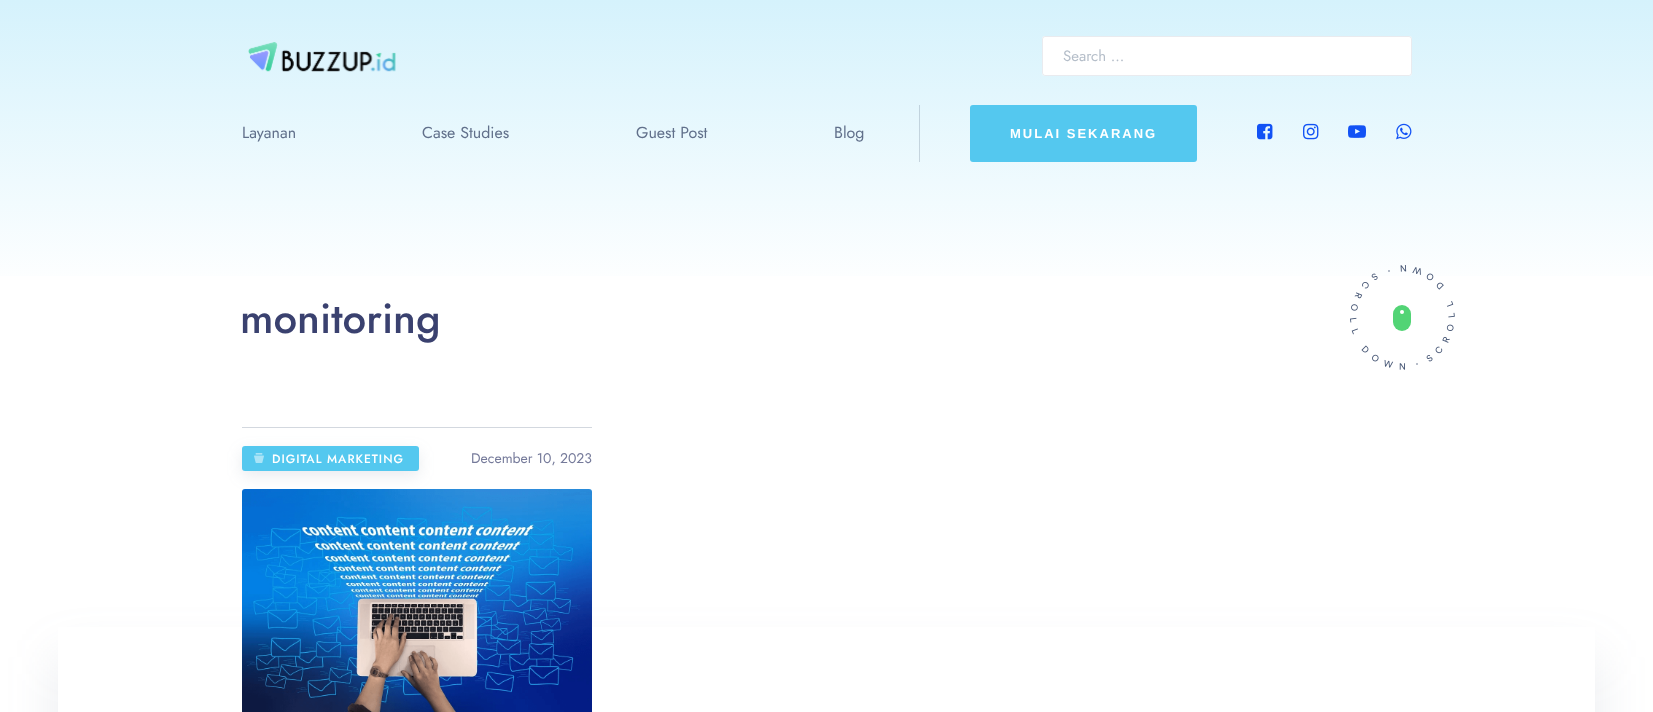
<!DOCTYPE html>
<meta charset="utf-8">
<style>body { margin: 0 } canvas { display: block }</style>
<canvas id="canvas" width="1653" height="712"></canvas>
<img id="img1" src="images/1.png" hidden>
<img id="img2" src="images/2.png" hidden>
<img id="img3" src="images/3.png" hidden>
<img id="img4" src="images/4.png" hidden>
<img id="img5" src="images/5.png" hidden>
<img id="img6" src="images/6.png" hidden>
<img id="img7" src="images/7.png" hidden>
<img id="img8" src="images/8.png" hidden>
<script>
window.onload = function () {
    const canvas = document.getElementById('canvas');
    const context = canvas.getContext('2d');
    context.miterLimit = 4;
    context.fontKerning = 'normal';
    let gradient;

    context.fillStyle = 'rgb(255, 255, 255)';
    context.fillRect(0, 0, 1653, 712);
    gradient = context.createLinearGradient(827, 294, 827, 0);
    gradient.addColorStop(0, 'rgb(255, 255, 255)');
    gradient.addColorStop(1, 'rgb(213, 242, 252)');
    context.fillStyle = gradient;
    context.fillRect(0, 0, 1653, 276);
    context.drawImage(document.getElementById('img1'), 248, 42, 148, 30);
    context.fillStyle = 'rgb(255, 255, 255)';
    context.beginPath();
    context.roundRect(1042, 36, 370, 40, 3);
    context.fill();
    context.beginPath();
    context.roundRect(1042.5, 36.5, 369, 39, 2.5);
    context.strokeStyle = 'rgba(107, 124, 147, 0.15)';
    context.stroke();
    context.fillStyle = 'rgb(84, 200, 239)';
    context.beginPath();
    context.roundRect(970, 105, 227, 57, 3);
    context.fill();
    context.drawImage(document.getElementById('img2'), 1257, 123, 16, 17);
    context.drawImage(document.getElementById('img3'), 1303, 123, 16, 17);
    context.drawImage(document.getElementById('img4'), 1348, 125, 18, 13);
    context.drawImage(document.getElementById('img5'), 1396, 123, 16, 17);
    gradient = context.createLinearGradient(827, 294, 827, 0);
    gradient.addColorStop(0, 'rgb(211, 216, 223)');
    gradient.addColorStop(1, 'rgb(181, 207, 220)');
    context.fillStyle = gradient;
    context.fillRect(919, 105, 1, 57);
    context.fillStyle = 'rgb(82, 212, 117)';
    context.beginPath();
    context.roundRect(1393, 305, 18, 26, 9);
    context.fill();
    context.fillStyle = 'rgb(255, 255, 255)';
    context.beginPath();
    context.arc(1402, 312, 2, 0, 2 * Math.PI);
    context.fill();
    context.drawImage(document.getElementById('img6'), 1350, 265, 105, 105);
    context.fillStyle = 'rgb(211, 216, 223)';
    context.fillRect(242, 427, 350, 1);
    context.fillStyle = 'rgba(107, 124, 147, 0.15)';
    context.filter = 'blur(7.5px)';
    context.beginPath();
    context.roundRect(242, 451, 177, 25, 3);
    context.fill();
    context.filter = 'none';
    context.fillStyle = 'rgb(84, 200, 239)';
    context.beginPath();
    context.roundRect(242, 446, 177, 25, 3);
    context.fill();
    context.drawImage(document.getElementById('img7'), 254, 453, 10, 10);
    context.fillStyle = 'rgba(107, 124, 147, 0.15)';
    context.filter = 'blur(25px)';
    context.beginPath();
    context.roundRect(58, 657, 1537, 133, 3);
    context.fill();
    context.filter = 'none';
    context.fillStyle = 'rgb(255, 255, 255)';
    context.fillRect(58, 627, 1537, 85);
    context.drawImage(document.getElementById('img8'), 242, 489, 350, 223);
    context.font = '15px Jost';
    context.fillStyle = 'rgb(181, 190, 201)';
    context.fillText('Search …', 1063, 61);
    context.font = '16px Jost';
    context.fillStyle = 'rgb(97, 112, 139)';
    context.fillText('Layanan', 242, 138);
    context.fillText('Case Studies', 422, 138);
    context.fillText('Guest Post', 636, 138);
    context.fillText('Blog', 834, 138);
    context.letterSpacing = '2px';
    context.font = 'bold 13px Liberation Sans';
    context.fillStyle = 'rgb(255, 255, 255)';
    context.fillText('MULAI SEKARANG', 1010, 138);
    context.letterSpacing = '0px';
    context.font = '500 42px Jost';
    context.fillStyle = 'rgb(58, 65, 111)';
    context.fillText('monitoring', 240, 333);
    context.letterSpacing = '1px';
    context.font = '500 12px Jost';
    context.fillStyle = 'rgb(255, 255, 255)';
    context.fillText('DIGITAL MARKETING', 272, 463);
    context.letterSpacing = '0px';
    context.font = '14px Jost';
    context.fillStyle = 'rgb(117, 122, 154)';
    context.fillText('December 10, 2023', 471, 463);
};
</script>
